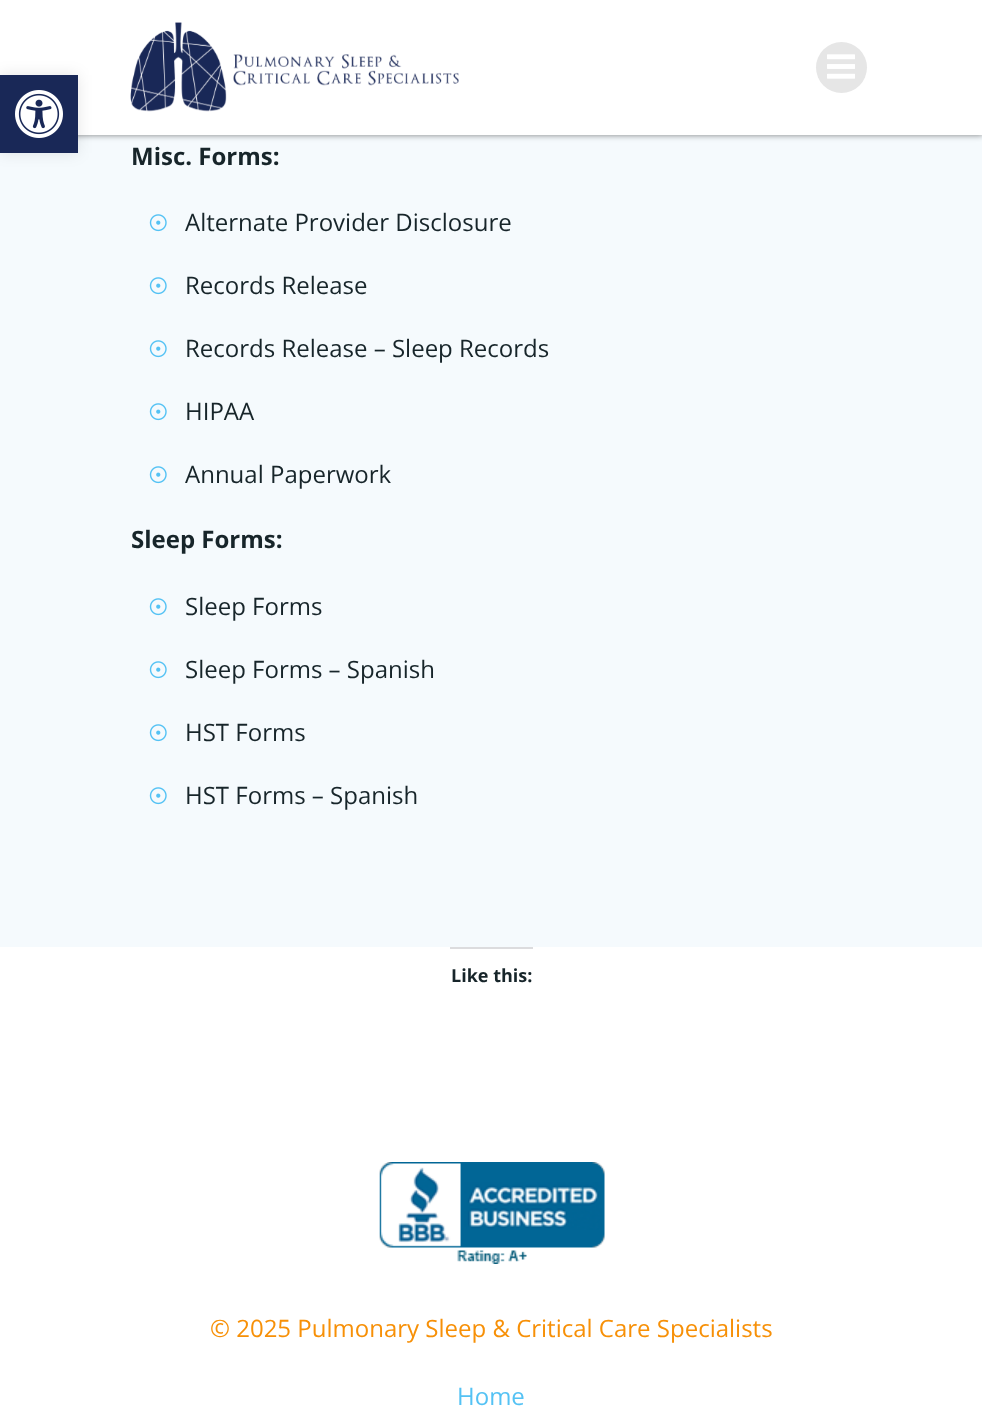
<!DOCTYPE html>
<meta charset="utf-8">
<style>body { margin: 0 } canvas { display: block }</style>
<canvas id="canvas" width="982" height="1415"></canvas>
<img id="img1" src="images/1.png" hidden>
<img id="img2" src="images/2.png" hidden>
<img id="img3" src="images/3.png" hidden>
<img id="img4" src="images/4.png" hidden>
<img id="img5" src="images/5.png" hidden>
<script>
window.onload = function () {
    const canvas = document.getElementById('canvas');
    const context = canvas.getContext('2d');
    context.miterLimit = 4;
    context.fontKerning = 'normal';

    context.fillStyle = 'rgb(255, 255, 255)';
    context.fillRect(0, 0, 982, 1415);
    context.fillStyle = 'rgb(245, 250, 253)';
    context.fillRect(0, 135, 982, 812);
    context.fillStyle = 'rgba(0, 0, 0, 0.5)';
    context.filter = 'blur(3px)';
    context.beginPath();
    context.rect(0, 0, 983, 135);
    context.fill();
    context.filter = 'none';
    context.fillStyle = 'rgb(255, 255, 255)';
    context.fillRect(0, 0, 982, 135);
    context.fillStyle = 'rgba(0, 0, 0, 0.1)';
    context.filter = 'blur(7.5px)';
    context.beginPath();
    context.rect(0, 75, 78, 78);
    context.fill();
    context.filter = 'none';
    context.fillStyle = 'rgb(25, 40, 87)';
    context.fillRect(0, 75, 78, 78);
    context.drawImage(document.getElementById('img1'), 15, 90, 48, 48);
    context.drawImage(document.getElementById('img2'), 130, 22, 329, 90);
    context.fillStyle = 'rgb(230, 230, 230)';
    context.beginPath();
    context.arc(841.5, 67.5, 25.5, 0, 2 * Math.PI);
    context.fill();
    context.drawImage(document.getElementById('img3'), 827, 54, 28, 25);
    context.drawImage(document.getElementById('img4'), 149, 214, 18, 18);
    context.drawImage(document.getElementById('img4'), 149, 277, 18, 18);
    context.drawImage(document.getElementById('img4'), 149, 340, 18, 18);
    context.drawImage(document.getElementById('img4'), 149, 403, 18, 18);
    context.drawImage(document.getElementById('img4'), 149, 466, 18, 18);
    context.drawImage(document.getElementById('img4'), 149, 598, 18, 18);
    context.drawImage(document.getElementById('img4'), 149, 661, 18, 18);
    context.drawImage(document.getElementById('img4'), 149, 724, 18, 18);
    context.drawImage(document.getElementById('img4'), 149, 787, 18, 18);
    context.fillStyle = 'rgb(220, 220, 222)';
    context.fillRect(450, 947, 83, 2);
    context.drawImage(document.getElementById('img5'), 379, 1162, 226, 102);
    context.font = 'bold 24px Open Sans';
    context.fillStyle = 'rgb(23, 37, 42)';
    context.fillText('Misc. Forms:', 131, 165);
    context.font = '24px Open Sans';
    context.fillText('Alternate Provider Disclosure', 185, 231);
    context.fillText('Records Release', 185, 294);
    context.fillText('Records Release – Sleep Records', 185, 357);
    context.fillText('HIPAA', 185, 420);
    context.fillText('Annual Paperwork', 185, 483);
    context.font = 'bold 24px Open Sans';
    context.fillText('Sleep Forms:', 131, 548);
    context.font = '24px Open Sans';
    context.fillText('Sleep Forms', 185, 615);
    context.fillText('Sleep Forms – Spanish', 185, 678);
    context.fillText('HST Forms', 185, 741);
    context.fillText('HST Forms – Spanish', 185, 804);
    context.font = 'bold 18px Open Sans';
    context.fillText('Like this:', 451, 982);
    context.font = '24px Open Sans';
    context.fillStyle = 'rgb(247, 144, 7)';
    context.fillText('© 2025 Pulmonary Sleep & Critical Care Specialists', 210, 1337);
    context.fillStyle = 'rgb(84, 194, 244)';
    context.fillText('Home', 457, 1405);
};
</script>
